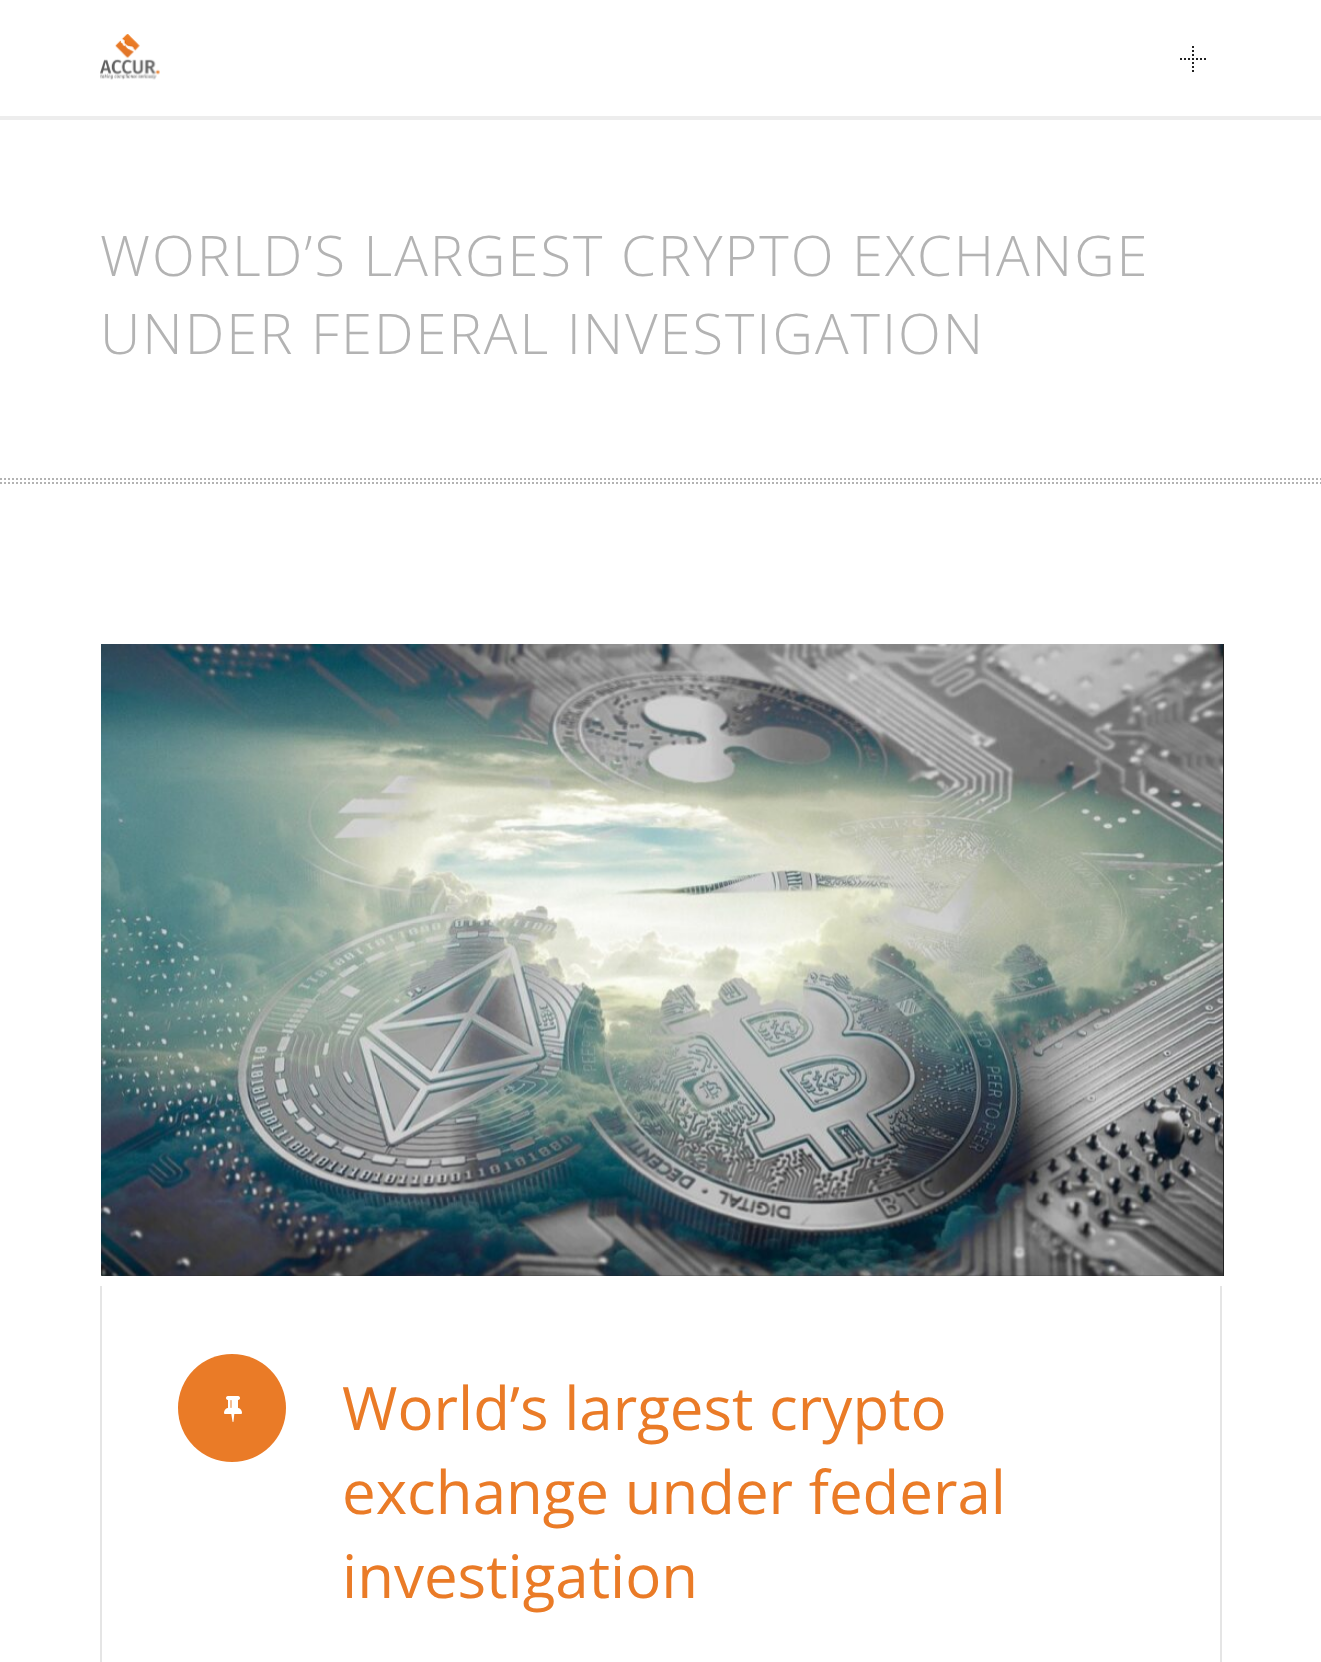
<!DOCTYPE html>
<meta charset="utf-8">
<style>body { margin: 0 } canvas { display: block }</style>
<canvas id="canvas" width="1321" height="1662"></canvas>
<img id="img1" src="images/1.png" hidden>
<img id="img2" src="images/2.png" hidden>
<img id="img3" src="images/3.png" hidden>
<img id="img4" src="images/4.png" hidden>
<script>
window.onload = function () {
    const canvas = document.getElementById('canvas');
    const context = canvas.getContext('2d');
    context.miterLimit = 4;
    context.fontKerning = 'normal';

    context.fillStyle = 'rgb(255, 255, 255)';
    context.fillRect(0, 0, 1321, 1662);
    context.drawImage(document.getElementById('img1'), 100, 34, 60, 46);
    context.drawImage(document.getElementById('img2'), 1180, 46, 26, 26);
    context.fillStyle = 'rgb(237, 237, 237)';
    context.fillRect(0, 116, 1321, 4);
    context.beginPath();
    context.moveTo(0, 483);
    context.lineTo(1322, 483);
    context.strokeStyle = 'rgb(179, 179, 179)';
    context.lineWidth = 2;
    context.setLineDash([2, 2]);
    context.stroke();
    context.beginPath();
    context.moveTo(0, 479);
    context.lineTo(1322, 479);
    context.stroke();
    context.fillStyle = 'rgb(34, 34, 34)';
    context.fillRect(102, 644, 1122, 632);
    context.drawImage(document.getElementById('img3'), 101, 644, 1122, 632);
    context.fillStyle = 'rgb(229, 229, 229)';
    context.fillRect(1220, 1286, 2, 376);
    context.fillRect(100, 1286, 2, 376);
    context.fillStyle = 'rgb(234, 123, 39)';
    context.beginPath();
    context.arc(232, 1408, 54, 0, 2 * Math.PI);
    context.fill();
    context.drawImage(document.getElementById('img4'), 224, 1396, 18, 26);
    context.letterSpacing = '2px';
    context.font = '300 56px Open Sans';
    context.fillStyle = 'rgb(179, 179, 179)';
    context.fillText('WORLD’S LARGEST CRYPTO EXCHANGE', 100, 276);
    context.fillText('UNDER FEDERAL INVESTIGATION', 100, 354);
    context.letterSpacing = '0px';
    context.font = '60px Open Sans';
    context.fillStyle = 'rgb(234, 123, 39)';
    context.fillText('World’s largest crypto', 342, 1430);
    context.fillText('exchange under federal', 342, 1514);
    context.fillText('investigation', 342, 1598);
};
</script>
